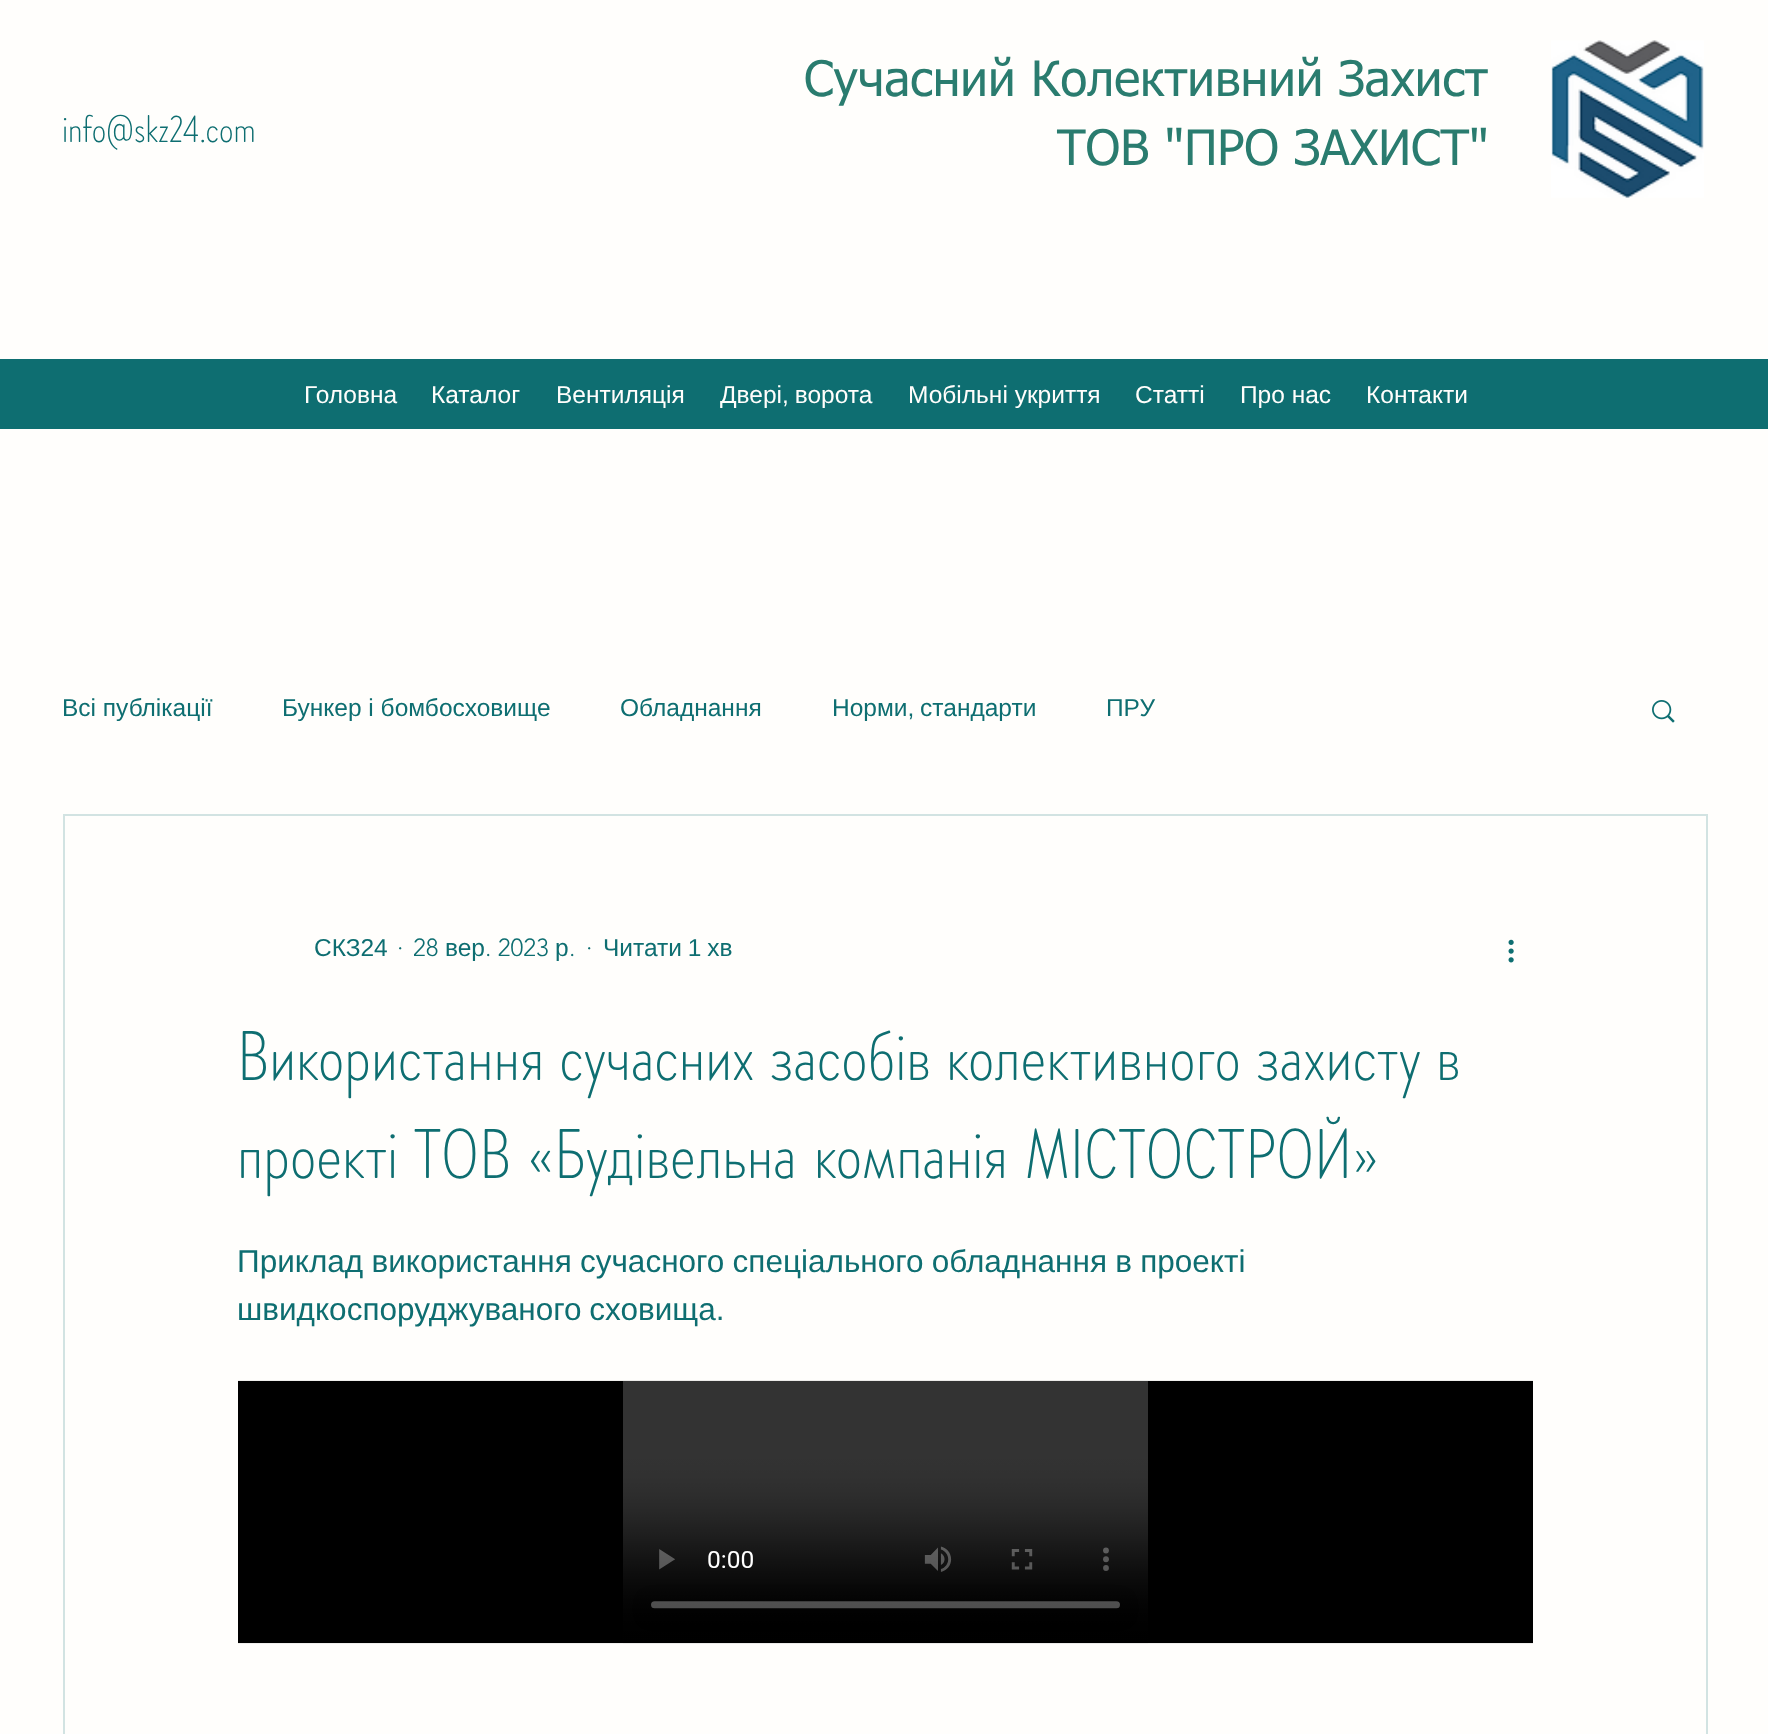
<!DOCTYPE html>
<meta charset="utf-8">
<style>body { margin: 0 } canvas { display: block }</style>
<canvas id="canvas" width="1768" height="1734"></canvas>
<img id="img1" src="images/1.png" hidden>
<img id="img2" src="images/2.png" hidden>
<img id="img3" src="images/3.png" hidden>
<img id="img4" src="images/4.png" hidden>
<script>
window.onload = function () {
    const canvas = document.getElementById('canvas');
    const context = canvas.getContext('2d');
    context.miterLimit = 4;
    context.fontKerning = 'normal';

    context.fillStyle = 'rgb(255, 254, 252)';
    context.fillRect(0, 0, 1768, 1734);
    context.drawImage(document.getElementById('img1'), 1551, 40, 153, 158);
    context.fillStyle = 'rgb(14, 110, 113)';
    context.fillRect(0, 359, 1768, 70);
    context.drawImage(document.getElementById('img2'), 1652, 700, 23, 23);
    context.strokeStyle = 'rgb(210, 227, 226)';
    context.lineWidth = 2;
    context.strokeRect(64, 815, 1643, 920);
    context.drawImage(document.getElementById('img3'), 1508, 939, 6, 24);
    context.drawImage(document.getElementById('img4'), 238, 1380, 1295, 264);
    context.font = '300 38.5px "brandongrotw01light"';
    context.fillText('info@skz24.com', 62, 142);
    context.font = '49px tahoma';
    context.fillStyle = 'rgb(42, 124, 111)';
    context.fillText('Сучасний Колективний Захист', 804, 96);
    context.fillText('ТОВ "ПРО ЗАХИСТ"', 1057, 165);
    context.font = '24.5px Liberation Sans';
    context.fillStyle = 'rgb(255, 254, 252)';
    context.fillText('Головна', 304, 403);
    context.fillText('Каталог', 431, 403);
    context.fillText('Вентиляція', 556, 403);
    context.wordSpacing = '-1px';
    context.fillText('Двері, ворота', 720, 403);
    context.wordSpacing = '0px';
    context.fillText('Мобільні укриття', 908, 403);
    context.fillText('Статті', 1135, 403);
    context.fillText('Про нас', 1240, 403);
    context.fillText('Контакти', 1366, 403);
    context.fillStyle = 'rgb(14, 110, 113)';
    context.fillText('Всі публікації', 62, 716);
    context.fillText('Бункер і бомбосховище', 282, 716);
    context.fillText('Обладнання', 620, 716);
    context.wordSpacing = '-1px';
    context.fillText('Норми, стандарти', 832, 716);
    context.wordSpacing = '0px';
    context.fillText('ПРУ', 1106, 716);
    context.fillText('СКЗ24', 314, 956);
    context.font = '300 24.5px "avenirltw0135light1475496"';
    context.fillText('·', 397, 956);
    context.fillText('28', 413, 956);
    context.font = '24.5px Liberation Sans';
    context.fillText('вер', 445, 956);
    context.font = '300 24.5px "avenirltw0135light1475496"';
    context.fillText('. 2023', 485, 956);
    context.font = '24.5px Liberation Sans';
    context.fillText('р', 555, 956);
    context.font = '300 24.5px "avenirltw0135light1475496"';
    context.fillText('.', 569, 956);
    context.fillText('·', 586, 956);
    context.wordSpacing = '-1px';
    context.font = '24.5px Liberation Sans';
    context.fillText('Читати 1 хв', 603, 956);
    context.wordSpacing = '0.5px';
    context.font = '300 70px "brandongrotw01light"';
    context.fillText('Використання сучасних засобів колективного захисту в', 237, 1080);
    context.wordSpacing = '2.5px';
    context.fillText('проекті ТОВ «Будівельна компанія МІСТОСТРОЙ»', 237, 1178);
    context.wordSpacing = '-0.5px';
    context.font = '31.5px Liberation Sans';
    context.fillText('Приклад використання сучасного спеціального обладнання в проекті', 237, 1272);
    context.wordSpacing = '-1px';
    context.fillText('швидкоспоруджуваного сховища.', 237, 1320);
};
</script>
